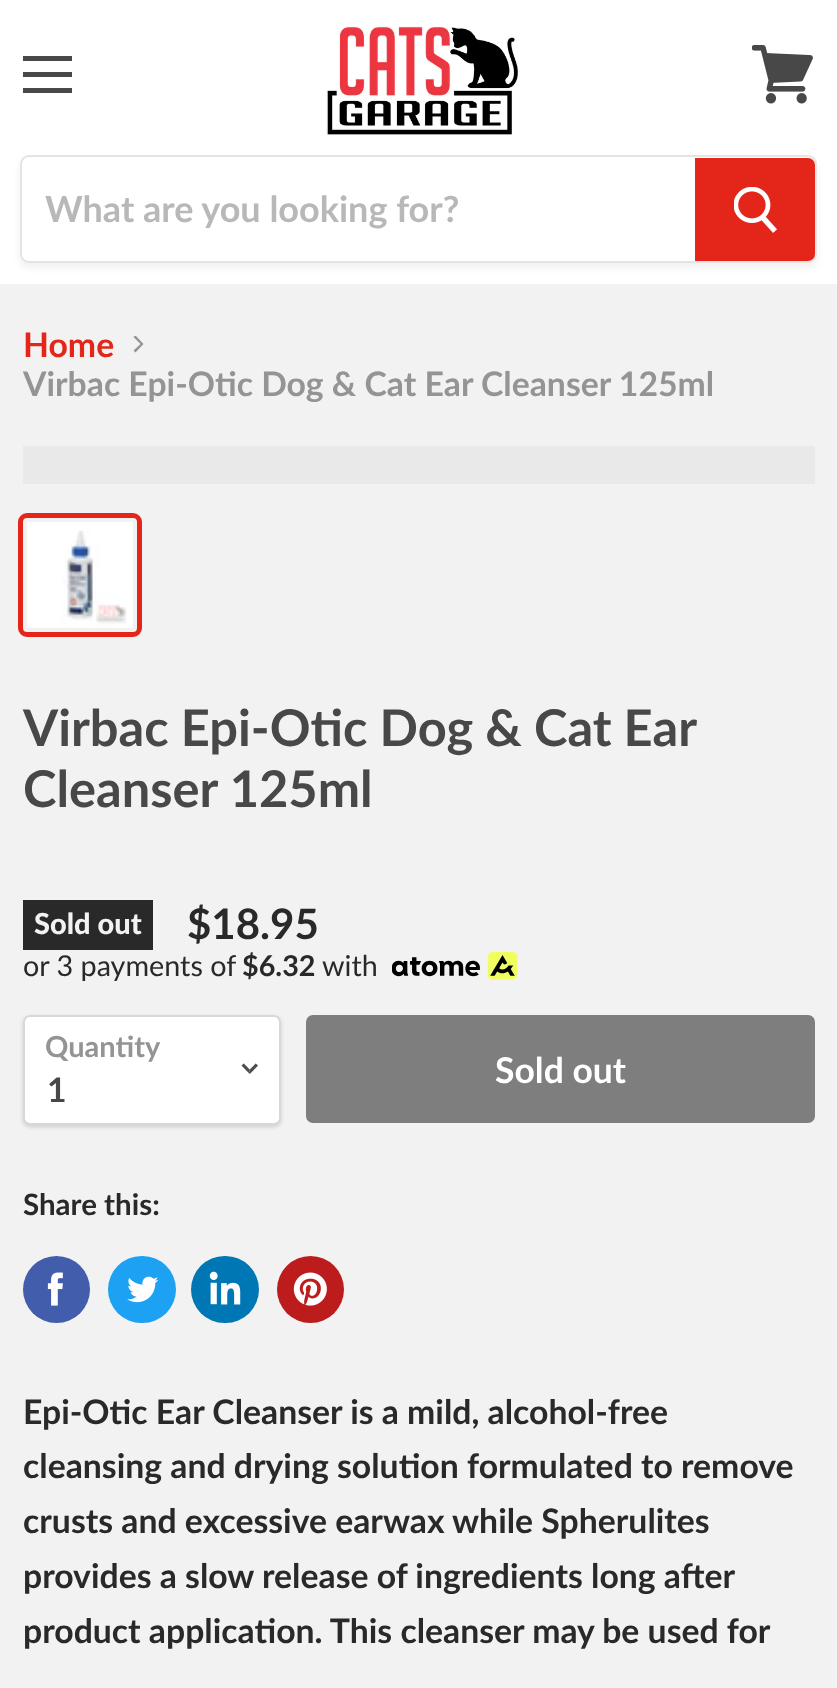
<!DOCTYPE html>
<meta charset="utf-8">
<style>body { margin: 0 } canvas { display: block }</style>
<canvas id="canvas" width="837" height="1688"></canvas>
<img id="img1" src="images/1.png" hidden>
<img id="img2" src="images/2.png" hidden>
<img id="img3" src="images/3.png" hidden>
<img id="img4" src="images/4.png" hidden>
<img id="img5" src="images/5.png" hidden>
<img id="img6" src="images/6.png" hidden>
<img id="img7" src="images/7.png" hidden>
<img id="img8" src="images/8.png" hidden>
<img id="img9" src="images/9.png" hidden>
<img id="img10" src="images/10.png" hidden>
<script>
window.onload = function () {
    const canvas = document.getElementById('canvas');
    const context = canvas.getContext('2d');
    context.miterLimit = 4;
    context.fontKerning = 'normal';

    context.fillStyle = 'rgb(242, 242, 242)';
    context.fillRect(0, 0, 837, 1688);
    context.fillStyle = 'rgb(255, 255, 255)';
    context.fillRect(0, 0, 837, 284);
    context.fillStyle = 'rgb(72, 72, 72)';
    context.fillRect(23, 56, 49, 5);
    context.fillRect(23, 72, 49, 5);
    context.fillRect(23, 88, 49, 5);
    context.drawImage(document.getElementById('img1'), 752, 45, 61, 59);
    context.drawImage(document.getElementById('img2'), 326, 26, 192, 109);
    context.save();
    context.beginPath();
    context.moveTo(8, 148);
    context.lineTo(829, 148);
    context.lineTo(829, 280);
    context.lineTo(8, 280);
    context.closePath();
    context.moveTo(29, 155);
    context.lineTo(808, 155);
    context.bezierCurveTo(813, 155, 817, 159, 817, 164);
    context.lineTo(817, 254);
    context.bezierCurveTo(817, 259, 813, 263, 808, 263);
    context.lineTo(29, 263);
    context.bezierCurveTo(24, 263, 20, 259, 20, 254);
    context.lineTo(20, 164);
    context.bezierCurveTo(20, 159, 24, 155, 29, 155);
    context.closePath();
    context.clip('evenodd');
    context.fillStyle = 'rgba(121, 121, 121, 0.11)';
    context.filter = 'blur(3.5px)';
    context.beginPath();
    context.roundRect(20, 160, 797, 108, 9);
    context.fill();
    context.filter = 'none';
    context.restore();
    context.beginPath();
    context.roundRect(21, 156, 795, 106, 8);
    context.strokeStyle = 'rgba(121, 121, 121, 0.2)';
    context.lineWidth = 2;
    context.stroke();
    context.fillStyle = 'rgb(255, 255, 255)';
    context.beginPath();
    context.roundRect(23, 158, 672, 103, [7, 0, 0, 7]);
    context.fill();
    context.fillStyle = 'rgb(227, 38, 25)';
    context.beginPath();
    context.roundRect(696, 159, 118, 101, [0, 6, 6, 0]);
    context.fill();
    context.strokeStyle = 'rgb(227, 38, 25)';
    context.stroke();
    context.drawImage(document.getElementById('img3'), 734, 187, 43, 46);
    context.fillStyle = 'rgb(148, 148, 148)';
    context.beginPath();
    context.moveTo(133.5, 350.5);
    context.lineTo(140.5, 344);
    context.lineTo(133.5, 337);
    context.lineTo(134.5, 336);
    context.lineTo(136, 336);
    context.lineTo(143.5, 344);
    context.lineTo(135.5, 352.5);
    context.closePath();
    context.fill();
    context.fillStyle = 'rgb(233, 233, 233)';
    context.fillRect(23, 446, 792, 38);
    context.beginPath();
    context.roundRect(20.5, 515.5, 119, 119, 6.5);
    context.lineWidth = 5;
    context.stroke();
    context.drawImage(document.getElementById('img4'), 27, 522, 106, 106);
    context.fillStyle = 'rgb(41, 41, 41)';
    context.fillRect(23, 900, 130, 50);
    context.drawImage(document.getElementById('img5'), 392, 952, 126, 28);
    context.fillStyle = 'rgba(0, 0, 0, 0.15)';
    context.filter = 'blur(2px)';
    context.beginPath();
    context.roundRect(23, 1017, 258, 110, 7);
    context.fill();
    context.filter = 'none';
    context.fillStyle = 'rgb(255, 255, 255)';
    context.beginPath();
    context.roundRect(24, 1016, 256, 108, 6);
    context.fill();
    context.strokeStyle = 'rgb(216, 216, 216)';
    context.lineWidth = 2;
    context.stroke();
    context.drawImage(document.getElementById('img6'), 241, 1063, 17, 11);
    context.fillStyle = 'rgb(126, 126, 126)';
    context.beginPath();
    context.roundRect(307, 1016, 507, 106, 6);
    context.fill();
    context.strokeStyle = 'rgb(126, 126, 126)';
    context.stroke();
    context.fillStyle = 'rgb(66, 93, 171)';
    context.beginPath();
    context.arc(56.5, 1289.5, 33.5, 0, 2 * Math.PI);
    context.fill();
    context.drawImage(document.getElementById('img7'), 47, 1272, 16, 34);
    context.fillStyle = 'rgb(29, 161, 242)';
    context.beginPath();
    context.roundRect(108, 1256, 68, 67, 33.5);
    context.fill();
    context.drawImage(document.getElementById('img8'), 127, 1276, 32, 27);
    context.fillStyle = 'rgb(0, 119, 181)';
    context.beginPath();
    context.roundRect(191, 1256, 68, 67, 33.5);
    context.fill();
    context.drawImage(document.getElementById('img9'), 209, 1271, 32, 34);
    context.fillStyle = 'rgb(189, 28, 28)';
    context.beginPath();
    context.arc(310.5, 1289.5, 33.5, 0, 2 * Math.PI);
    context.fill();
    context.drawImage(document.getElementById('img10'), 293, 1272, 34, 34);
    context.font = 'bold 36px Lato';
    context.fillStyle = 'rgb(184, 184, 184)';
    context.fillText('What are you looking for?', 45, 222);
    context.font = 'bold 33.75px Lato';
    context.fillStyle = 'rgb(227, 38, 25)';
    context.fillText('Home', 23, 357);
    context.fillStyle = 'rgb(148, 148, 148)';
    context.fillText('Virbac Epi-Otic Dog & Cat Ear Cleanser 125ml', 23, 396);
    context.wordSpacing = '-0.25px';
    context.font = 'bold 50.6px Lato';
    context.fillStyle = 'rgb(72, 72, 72)';
    context.fillText('Virbac Epi-Otic Dog & Cat Ear', 23, 746);
    context.wordSpacing = '0px';
    context.fillText('Cleanser 125ml', 23, 807);
    context.font = '900 29px Lato';
    context.fillStyle = 'rgb(242, 242, 242)';
    context.fillText('Sold out', 34, 934);
    context.font = 'bold 42px Lato';
    context.fillStyle = 'rgb(41, 41, 41)';
    context.fillText('$18.95', 187, 939);
    context.font = '28.75px Lato';
    context.fillText('or 3 payments of', 23, 976);
    context.font = 'bold 28.75px Lato';
    context.fillText('$6.32', 242, 976);
    context.font = '28.75px Lato';
    context.fillText('with', 322, 976);
    context.font = 'bold 29px Lato';
    context.fillStyle = 'rgb(148, 148, 148)';
    context.fillText('Quantity', 45, 1057);
    context.font = 'bold 33.75px Lato';
    context.fillStyle = 'rgb(72, 72, 72)';
    context.fillText('1', 47, 1102);
    context.font = 'bold 35.5px Lato';
    context.fillStyle = 'rgb(255, 255, 255)';
    context.fillText('Sold out', 495, 1083);
    context.font = 'bold 29.5px Lato';
    context.fillStyle = 'rgb(41, 41, 41)';
    context.fillText('Share this:', 23, 1215);
    context.font = 'bold 33.75px Lato';
    context.fillText('Epi-Otic Ear Cleanser is a mild, alcohol-free', 23, 1424);
    context.fillText('cleansing and drying solution formulated to remove', 23, 1478);
    context.fillText('crusts and excessive earwax while Spherulites', 23, 1533);
    context.fillText('provides a slow release of ingredients long after', 23, 1588);
    context.fillText('product application. This cleanser may be used for', 23, 1643);
};
</script>
